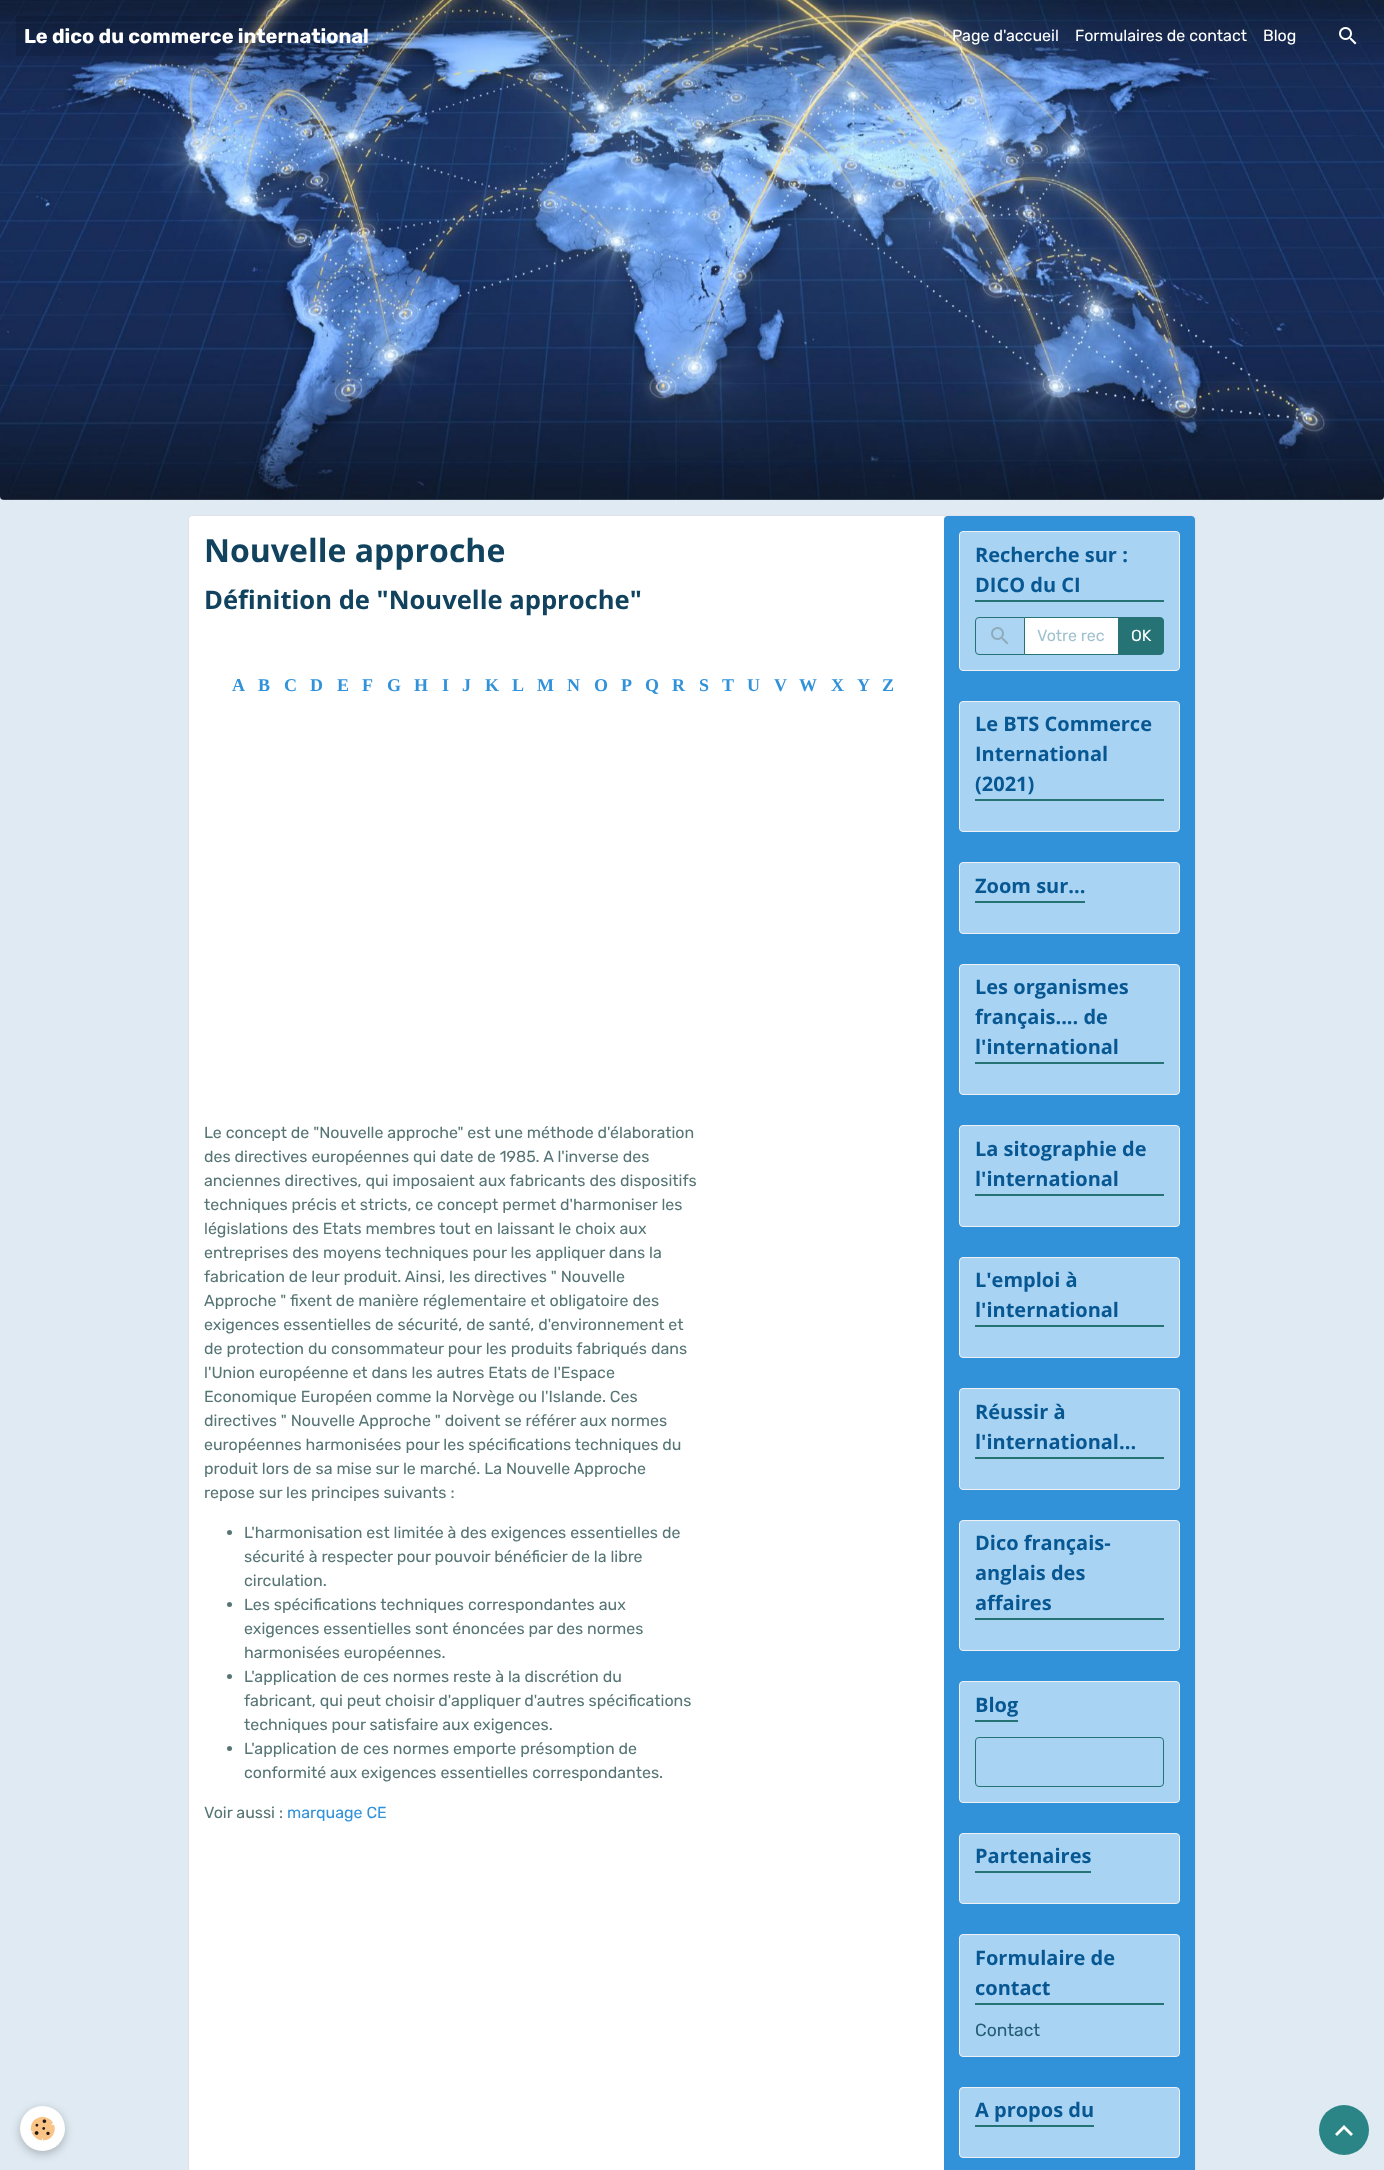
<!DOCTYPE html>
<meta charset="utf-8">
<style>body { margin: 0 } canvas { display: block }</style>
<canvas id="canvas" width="1384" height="2170"></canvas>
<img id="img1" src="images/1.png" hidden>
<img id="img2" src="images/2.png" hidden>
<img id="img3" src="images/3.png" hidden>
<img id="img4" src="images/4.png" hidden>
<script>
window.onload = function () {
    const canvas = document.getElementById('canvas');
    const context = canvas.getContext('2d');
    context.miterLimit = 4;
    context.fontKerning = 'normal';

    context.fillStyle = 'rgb(223, 234, 242)';
    context.fillRect(0, 0, 1384, 2170);
    context.drawImage(document.getElementById('img1'), 0, 0, 1384, 500);
    context.fillStyle = 'rgba(0, 0, 0, 0.1)';
    context.fillRect(16, 16, 361, 40);
    context.drawImage(document.getElementById('img2'), 1339, 27, 18, 18);
    context.fillStyle = 'rgb(255, 255, 255)';
    context.beginPath();
    context.roundRect(188.5, 515.5, 1007, 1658, 3.5);
    context.fill();
    context.strokeStyle = 'rgb(224, 226, 235)';
    context.stroke();
    context.fillStyle = 'rgb(87, 117, 117)';
    context.beginPath();
    context.arc(229.5, 1532.5, 2.5, 0, 2 * Math.PI);
    context.fill();
    context.beginPath();
    context.arc(229.5, 1604.5, 2.5, 0, 2 * Math.PI);
    context.fill();
    context.beginPath();
    context.arc(229.5, 1676.5, 2.5, 0, 2 * Math.PI);
    context.fill();
    context.beginPath();
    context.arc(229.5, 1748.5, 2.5, 0, 2 * Math.PI);
    context.fill();
    context.fillStyle = 'rgb(49, 146, 218)';
    context.beginPath();
    context.roundRect(944, 516, 251, 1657, 4);
    context.fill();
    context.fillStyle = 'rgb(168, 211, 243)';
    context.beginPath();
    context.roundRect(959.5, 531.5, 220, 139, 3.5);
    context.fill();
    context.strokeStyle = 'rgb(240, 241, 245)';
    context.stroke();
    context.fillStyle = 'rgb(37, 115, 116)';
    context.fillRect(975, 600, 189, 2);
    context.fillStyle = 'rgb(172, 213, 244)';
    context.beginPath();
    context.roundRect(975.5, 617.5, 49, 37, [3.5, 0, 0, 3.5]);
    context.fill();
    context.strokeStyle = 'rgb(37, 115, 116)';
    context.stroke();
    context.drawImage(document.getElementById('img3'), 991, 627, 18, 18);
    context.fillStyle = 'rgb(255, 255, 255)';
    context.beginPath();
    context.rect(1024.5, 617.5, 94, 37);
    context.fill();
    context.stroke();
    context.fillStyle = 'rgb(37, 115, 116)';
    context.beginPath();
    context.roundRect(1118.5, 617.5, 45, 37, [0, 3.5, 3.5, 0]);
    context.fill();
    context.stroke();
    context.fillStyle = 'rgb(168, 211, 243)';
    context.beginPath();
    context.roundRect(959.5, 701.5, 220, 130, 3.5);
    context.fill();
    context.strokeStyle = 'rgb(240, 241, 245)';
    context.stroke();
    context.fillStyle = 'rgb(37, 115, 116)';
    context.fillRect(975, 799, 189, 2);
    context.fillStyle = 'rgb(168, 211, 243)';
    context.beginPath();
    context.roundRect(959.5, 862.5, 220, 71, 3.5);
    context.fill();
    context.stroke();
    context.fillStyle = 'rgb(37, 115, 116)';
    context.fillRect(975, 901, 110, 2);
    context.fillStyle = 'rgb(168, 211, 243)';
    context.beginPath();
    context.roundRect(959.5, 964.5, 220, 130, 3.5);
    context.fill();
    context.stroke();
    context.fillStyle = 'rgb(37, 115, 116)';
    context.fillRect(975, 1062, 189, 2);
    context.fillStyle = 'rgb(168, 211, 243)';
    context.beginPath();
    context.roundRect(959.5, 1125.5, 220, 101, 3.5);
    context.fill();
    context.stroke();
    context.fillStyle = 'rgb(37, 115, 116)';
    context.fillRect(975, 1194, 189, 2);
    context.fillStyle = 'rgb(168, 211, 243)';
    context.beginPath();
    context.roundRect(959.5, 1257.5, 220, 100, 3.5);
    context.fill();
    context.stroke();
    context.fillStyle = 'rgb(37, 115, 116)';
    context.fillRect(975, 1325, 189, 2);
    context.fillStyle = 'rgb(168, 211, 243)';
    context.beginPath();
    context.roundRect(959.5, 1388.5, 220, 101, 3.5);
    context.fill();
    context.stroke();
    context.fillStyle = 'rgb(37, 115, 116)';
    context.fillRect(975, 1457, 189, 2);
    context.fillStyle = 'rgb(168, 211, 243)';
    context.beginPath();
    context.roundRect(959.5, 1520.5, 220, 130, 3.5);
    context.fill();
    context.stroke();
    context.fillStyle = 'rgb(37, 115, 116)';
    context.fillRect(975, 1618, 189, 2);
    context.fillStyle = 'rgb(168, 211, 243)';
    context.beginPath();
    context.roundRect(959.5, 1681.5, 220, 121, 3.5);
    context.fill();
    context.stroke();
    context.fillStyle = 'rgb(37, 115, 116)';
    context.fillRect(975, 1720, 43, 2);
    context.beginPath();
    context.roundRect(975.5, 1737.5, 188, 49, 3.5);
    context.strokeStyle = 'rgb(37, 115, 116)';
    context.stroke();
    context.fillStyle = 'rgb(168, 211, 243)';
    context.beginPath();
    context.roundRect(959.5, 1833.5, 220, 70, 3.5);
    context.fill();
    context.strokeStyle = 'rgb(240, 241, 245)';
    context.stroke();
    context.fillStyle = 'rgb(37, 115, 116)';
    context.fillRect(975, 1871, 116, 2);
    context.fillStyle = 'rgb(168, 211, 243)';
    context.beginPath();
    context.roundRect(959.5, 1934.5, 220, 122, 3.5);
    context.fill();
    context.stroke();
    context.fillStyle = 'rgb(37, 115, 116)';
    context.fillRect(975, 2003, 189, 2);
    context.fillStyle = 'rgb(168, 211, 243)';
    context.beginPath();
    context.roundRect(959.5, 2087.5, 220, 70, 3.5);
    context.fill();
    context.stroke();
    context.fillStyle = 'rgb(37, 115, 116)';
    context.fillRect(975, 2125, 119, 2);
    context.fillStyle = 'rgba(0, 0, 0, 0.24)';
    context.filter = 'blur(5px)';
    context.beginPath();
    context.roundRect(20, 2109, 45, 45, 22.5);
    context.fill();
    context.filter = 'none';
    context.fillStyle = 'rgb(255, 255, 255)';
    context.beginPath();
    context.arc(42.5, 2128.5, 22.5, 0, 2 * Math.PI);
    context.fill();
    context.drawImage(document.getElementById('img4'), 30, 2116, 25, 25);
    context.fillStyle = 'rgb(43, 133, 135)';
    context.beginPath();
    context.arc(1344, 2130, 25, 0, 2 * Math.PI);
    context.fill();
    context.fillStyle = 'rgb(255, 255, 255)';
    context.beginPath();
    context.moveTo(1344, 2125);
    context.lineTo(1353, 2134);
    context.lineTo(1351, 2136);
    context.lineTo(1344, 2129);
    context.lineTo(1337, 2136);
    context.lineTo(1335, 2134);
    context.closePath();
    context.fill();
    context.font = 'bold 20px Rubik';
    context.fillText('Le dico du commerce international', 24, 43);
    context.font = '16px Rubik';
    context.fillText('Page d\'accueil', 952, 41);
    context.fillText('Formulaires de contact', 1075, 41);
    context.fillText('Blog', 1263, 41);
    context.font = 'bold 32px Open Sans';
    context.fillStyle = 'rgb(17, 67, 94)';
    context.fillText('Nouvelle approche', 204, 562);
    context.font = 'bold 25.6px Open Sans';
    context.fillText('Définition de "Nouvelle approche"', 204, 609);
    context.font = 'bold 18px Liberation Serif';
    context.fillStyle = 'rgb(49, 146, 218)';
    context.fillText('A', 232, 691);
    context.fillText('B', 258, 691);
    context.fillText('C', 284, 691);
    context.fillText('D', 310, 691);
    context.fillText('E', 337, 691);
    context.fillText('F', 362, 691);
    context.fillText('G', 387, 691);
    context.fillText('H', 414, 691);
    context.fillText('I', 442, 691);
    context.fillText('J', 462, 691);
    context.fillText('K', 485, 691);
    context.fillText('L', 512, 691);
    context.fillText('M', 537, 691);
    context.fillText('N', 567, 691);
    context.fillText('O', 594, 691);
    context.fillText('P', 621, 691);
    context.fillText('Q', 645, 691);
    context.fillText('R', 672, 691);
    context.fillText('S', 699, 691);
    context.fillText('T', 722, 691);
    context.fillText('U', 747, 691);
    context.fillText('V', 774, 691);
    context.fillText('W', 799, 691);
    context.fillText('X', 831, 691);
    context.fillText('Y', 857, 691);
    context.fillText('Z', 882, 691);
    context.font = '16px Rubik';
    context.fillStyle = 'rgb(87, 117, 117)';
    context.fillText('Le concept de "Nouvelle approche" est une méthode d\'élaboration', 204, 1138);
    context.fillText('des directives européennes qui date de 1985. A l\'inverse des', 204, 1162);
    context.fillText('anciennes directives, qui imposaient aux fabricants des dispositifs', 204, 1186);
    context.fillText('techniques précis et stricts, ce concept permet d\'harmoniser les', 204, 1210);
    context.fillText('législations des Etats membres tout en laissant le choix aux', 204, 1234);
    context.fillText('entreprises des moyens techniques pour les appliquer dans la', 204, 1258);
    context.fillText('fabrication de leur produit. Ainsi, les directives " Nouvelle', 204, 1282);
    context.fillText('Approche " fixent de manière réglementaire et obligatoire des', 204, 1306);
    context.fillText('exigences essentielles de sécurité, de santé, d\'environnement et', 204, 1330);
    context.fillText('de protection du consommateur pour les produits fabriqués dans', 204, 1354);
    context.fillText('l\'Union européenne et dans les autres Etats de l\'Espace', 204, 1378);
    context.fillText('Economique Européen comme la Norvège ou l\'Islande. Ces', 204, 1402);
    context.fillText('directives " Nouvelle Approche " doivent se référer aux normes', 204, 1426);
    context.fillText('européennes harmonisées pour les spécifications techniques du', 204, 1450);
    context.fillText('produit lors de sa mise sur le marché. La Nouvelle Approche', 204, 1474);
    context.fillText('repose sur les principes suivants :', 204, 1498);
    context.fillText('L\'harmonisation est limitée à des exigences essentielles de', 244, 1538);
    context.fillText('sécurité à respecter pour pouvoir bénéficier de la libre', 244, 1562);
    context.fillText('circulation.', 244, 1586);
    context.fillText('Les spécifications techniques correspondantes aux', 244, 1610);
    context.fillText('exigences essentielles sont énoncées par des normes', 244, 1634);
    context.fillText('harmonisées européennes.', 244, 1658);
    context.fillText('L\'application de ces normes reste à la discrétion du', 244, 1682);
    context.fillText('fabricant, qui peut choisir d\'appliquer d\'autres spécifications', 244, 1706);
    context.fillText('techniques pour satisfaire aux exigences.', 244, 1730);
    context.fillText('L\'application de ces normes emporte présomption de', 244, 1754);
    context.fillText('conformité aux exigences essentielles correspondantes.', 244, 1778);
    context.fillText('Voir aussi :', 204, 1818);
    context.fillStyle = 'rgb(49, 146, 218)';
    context.fillText('marquage CE', 287, 1818);
    context.font = 'bold 20px Open Sans';
    context.fillStyle = 'rgb(7, 87, 146)';
    context.fillText('Recherche sur :', 975, 562);
    context.fillText('DICO du CI', 975, 592);
    context.font = '16px Rubik';
    context.fillStyle = 'rgb(160, 194, 207)';
    context.fillText('Votre rec', 1037, 641);
    context.fillStyle = 'rgb(255, 255, 255)';
    context.fillText('OK', 1131, 641);
    context.font = 'bold 20px Open Sans';
    context.fillStyle = 'rgb(7, 87, 146)';
    context.fillText('Le BTS Commerce', 975, 731);
    context.fillText('International', 975, 761);
    context.fillText('(2021)', 975, 791);
    context.fillText('Zoom sur...', 975, 893);
    context.fillText('Les organismes', 975, 994);
    context.fillText('français.... de', 975, 1024);
    context.fillText('l\'international', 975, 1054);
    context.fillText('La sitographie de', 975, 1156);
    context.fillText('l\'international', 975, 1186);
    context.fillText('L\'emploi à', 975, 1287);
    context.fillText('l\'international', 975, 1317);
    context.fillText('Réussir à', 975, 1419);
    context.fillText('l\'international...', 975, 1449);
    context.fillText('Dico français-', 975, 1550);
    context.fillText('anglais des', 975, 1580);
    context.fillText('affaires', 975, 1610);
    context.fillText('Blog', 975, 1712);
    context.fillText('Partenaires', 975, 1863);
    context.fillText('Formulaire de', 975, 1965);
    context.fillText('contact', 975, 1995);
    context.font = '17.5px Rubik';
    context.fillStyle = 'rgb(37, 93, 116)';
    context.fillText('Contact', 975, 2036);
    context.font = 'bold 20px Open Sans';
    context.fillStyle = 'rgb(7, 87, 146)';
    context.fillText('A propos du', 975, 2117);
};
</script>
